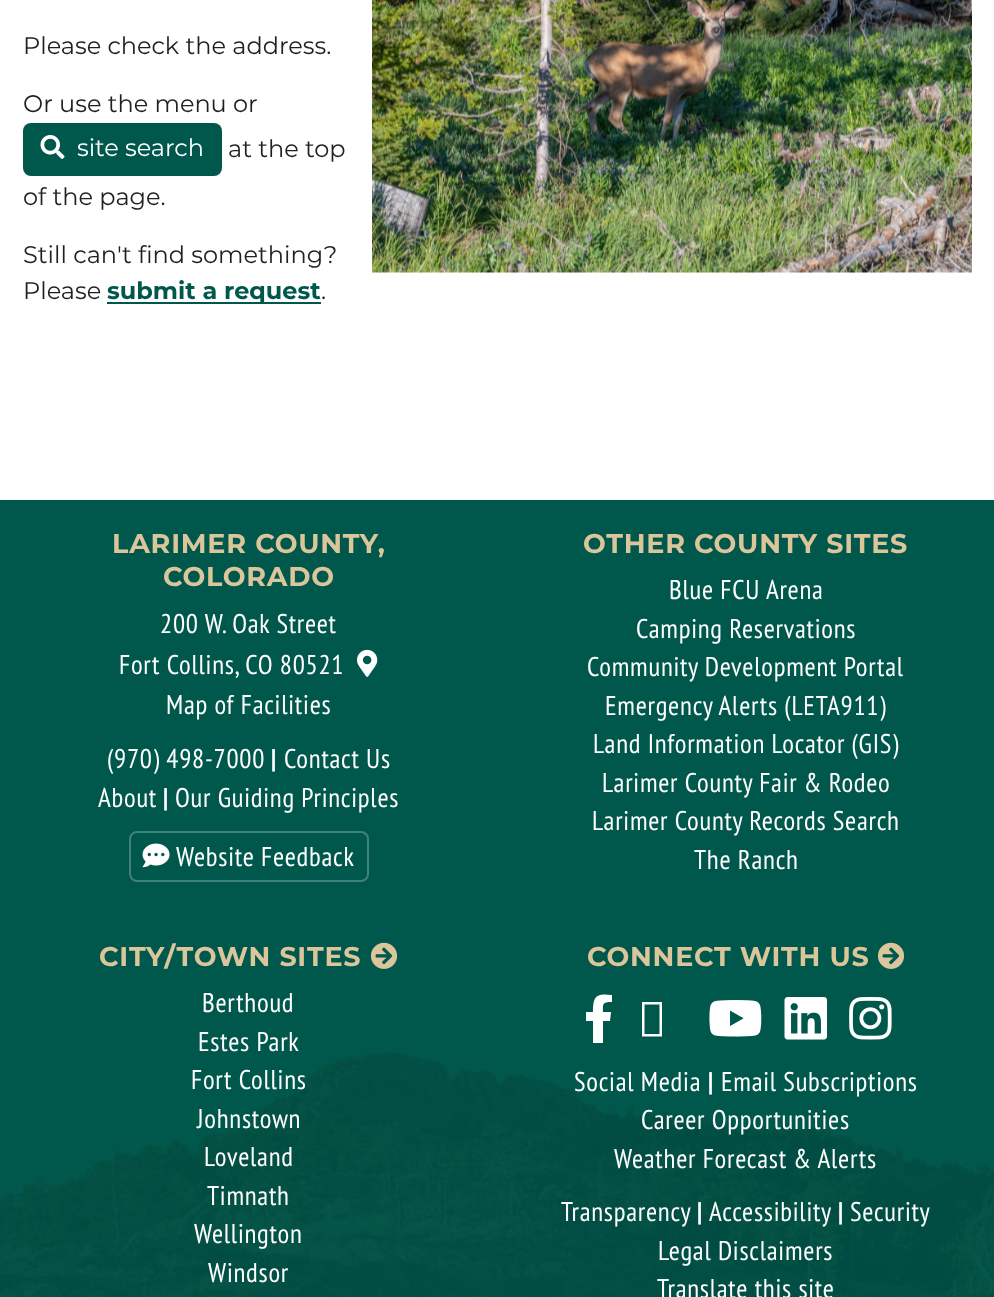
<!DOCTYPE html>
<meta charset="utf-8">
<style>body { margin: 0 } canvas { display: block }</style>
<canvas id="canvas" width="994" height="1297"></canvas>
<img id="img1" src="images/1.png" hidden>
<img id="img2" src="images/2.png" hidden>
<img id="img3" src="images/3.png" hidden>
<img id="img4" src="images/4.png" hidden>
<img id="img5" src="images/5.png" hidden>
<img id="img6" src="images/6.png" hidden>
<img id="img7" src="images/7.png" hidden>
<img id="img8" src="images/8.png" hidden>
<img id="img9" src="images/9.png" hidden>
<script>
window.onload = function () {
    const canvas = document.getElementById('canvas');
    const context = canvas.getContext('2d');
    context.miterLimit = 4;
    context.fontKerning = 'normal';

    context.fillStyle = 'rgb(255, 255, 255)';
    context.fillRect(0, 0, 994, 1297);
    context.drawImage(document.getElementById('img1'), 372, 0, 600, 273);
    context.fillStyle = 'rgb(0, 88, 76)';
    context.beginPath();
    context.roundRect(23, 123, 199, 53, 8);
    context.fill();
    context.drawImage(document.getElementById('img2'), 40, 135, 25, 24);
    context.fillRect(107, 302, 214, 2);
    context.fillRect(0, 500, 994, 552);
    context.drawImage(document.getElementById('img3'), 0, 1052, 994, 245);
    context.drawImage(document.getElementById('img4'), 357, 649, 21, 28);
    context.beginPath();
    context.roundRect(130, 832, 238, 49, 7);
    context.strokeStyle = 'rgb(64, 130, 121)';
    context.lineWidth = 2;
    context.stroke();
    context.drawImage(document.getElementById('img5'), 142, 843, 28, 25);
    context.drawImage(document.getElementById('img6'), 370, 942, 28, 27);
    context.drawImage(document.getElementById('img6'), 877, 942, 28, 27);
    context.fillStyle = 'rgb(255, 255, 255)';
    context.beginPath();
    context.moveTo(610, 1021);
    context.lineTo(603, 1021);
    context.lineTo(603, 1043);
    context.lineTo(593, 1043);
    context.lineTo(593, 1021);
    context.lineTo(586, 1021);
    context.lineTo(586, 1012);
    context.lineTo(593, 1012);
    context.bezierCurveTo(593, 996, 596, 993, 612, 995);
    context.lineTo(612, 1002);
    context.bezierCurveTo(602, 1002, 603, 1004, 603, 1012);
    context.lineTo(611, 1012);
    context.closePath();
    context.fill();
    context.beginPath();
    context.moveTo(642, 1036.5);
    context.lineTo(642, 1002);
    context.lineTo(662, 1002);
    context.lineTo(662, 1036.5);
    context.closePath();
    context.moveTo(644.5, 1034);
    context.lineTo(659.5, 1034);
    context.lineTo(659.5, 1004.5);
    context.lineTo(644.5, 1004.5);
    context.closePath();
    context.fill();
    context.drawImage(document.getElementById('img7'), 709, 1000, 53, 37);
    context.drawImage(document.getElementById('img8'), 784, 997, 44, 43);
    context.drawImage(document.getElementById('img9'), 849, 997, 43, 43);
    context.font = '24px Montserrat';
    context.fillStyle = 'rgb(35, 31, 32)';
    context.fillText('Please check the address.', 23, 54);
    context.fillText('Or use the menu or', 23, 112);
    context.fillStyle = 'rgb(255, 255, 255)';
    context.fillText('site search', 77, 156);
    context.fillStyle = 'rgb(35, 31, 32)';
    context.fillText('at the top', 228, 157);
    context.fillText('of the page.', 23, 205);
    context.fillText('Still can\'t find something?', 23, 263);
    context.fillText('Please', 23, 299);
    context.font = 'bold 24px Montserrat';
    context.fillStyle = 'rgb(0, 88, 76)';
    context.fillText('submit a request', 107, 299);
    context.font = '24px Montserrat';
    context.fillStyle = 'rgb(35, 31, 32)';
    context.fillText('.', 321, 299);
    context.letterSpacing = '0.75px';
    context.font = 'bold 27px Montserrat';
    context.fillStyle = 'rgb(219, 198, 155)';
    context.fillText('LARIMER COUNTY,', 112, 553);
    context.fillText('COLORADO', 163, 586);
    context.font = '27px PT Sans Narrow';
    context.fillStyle = 'rgb(255, 255, 255)';
    context.fillText('200 W. Oak Street', 160, 633);
    context.fillText('Fort Collins, CO 80521', 119, 674);
    context.fillText('Map of Facilities', 166, 714);
    context.fillText('(970) 498-7000', 107, 768);
    context.font = 'bold 27px PT Sans Narrow';
    context.fillText('|', 271, 768);
    context.font = '27px PT Sans Narrow';
    context.fillText('Contact Us', 284, 768);
    context.fillText('About', 98, 807);
    context.font = 'bold 27px PT Sans Narrow';
    context.fillText('|', 163, 807);
    context.font = '27px PT Sans Narrow';
    context.fillText('Our Guiding Principles', 175, 807);
    context.fillText('Website Feedback', 176, 866);
    context.font = 'bold 27px Montserrat';
    context.fillStyle = 'rgb(219, 198, 155)';
    context.fillText('OTHER COUNTY SITES', 583, 553);
    context.font = '27px PT Sans Narrow';
    context.fillStyle = 'rgb(255, 255, 255)';
    context.fillText('Blue FCU Arena', 669, 599);
    context.fillText('Camping Reservations', 636, 638);
    context.fillText('Community Development Portal', 587, 676);
    context.fillText('Emergency Alerts (LETA911)', 605, 715);
    context.fillText('Land Information Locator (GIS)', 593, 753);
    context.fillText('Larimer County Fair & Rodeo', 602, 792);
    context.fillText('Larimer County Records Search', 592, 830);
    context.fillText('The Ranch', 694, 869);
    context.font = 'bold 27px Montserrat';
    context.fillStyle = 'rgb(219, 198, 155)';
    context.fillText('CITY/TOWN SITES', 99, 966);
    context.font = '27px PT Sans Narrow';
    context.fillStyle = 'rgb(255, 255, 255)';
    context.fillText('Berthoud', 202, 1012);
    context.fillText('Estes Park', 198, 1051);
    context.fillText('Fort Collins', 191, 1089);
    context.fillText('Johnstown', 197, 1128);
    context.fillText('Loveland', 204, 1166);
    context.fillText('Timnath', 207, 1205);
    context.fillText('Wellington', 194, 1243);
    context.fillText('Windsor', 208, 1282);
    context.font = 'bold 27px Montserrat';
    context.fillStyle = 'rgb(219, 198, 155)';
    context.fillText('CONNECT WITH US', 587, 966);
    context.font = '27px PT Sans Narrow';
    context.fillStyle = 'rgb(255, 255, 255)';
    context.fillText('Social Media', 574, 1091);
    context.font = 'bold 27px PT Sans Narrow';
    context.fillText('|', 708, 1091);
    context.font = '27px PT Sans Narrow';
    context.fillText('Email Subscriptions', 721, 1091);
    context.fillText('Career Opportunities', 641, 1129);
    context.fillText('Weather Forecast & Alerts', 614, 1168);
    context.fillText('Transparency', 561, 1221);
    context.font = 'bold 27px PT Sans Narrow';
    context.fillText('|', 697, 1221);
    context.font = '27px PT Sans Narrow';
    context.fillText('Accessibility', 709, 1221);
    context.font = 'bold 27px PT Sans Narrow';
    context.fillText('|', 838, 1221);
    context.font = '27px PT Sans Narrow';
    context.fillText('Security', 850, 1221);
    context.fillText('Legal Disclaimers', 658, 1260);
    context.fillText('Translate this site', 657, 1298);
};
</script>
